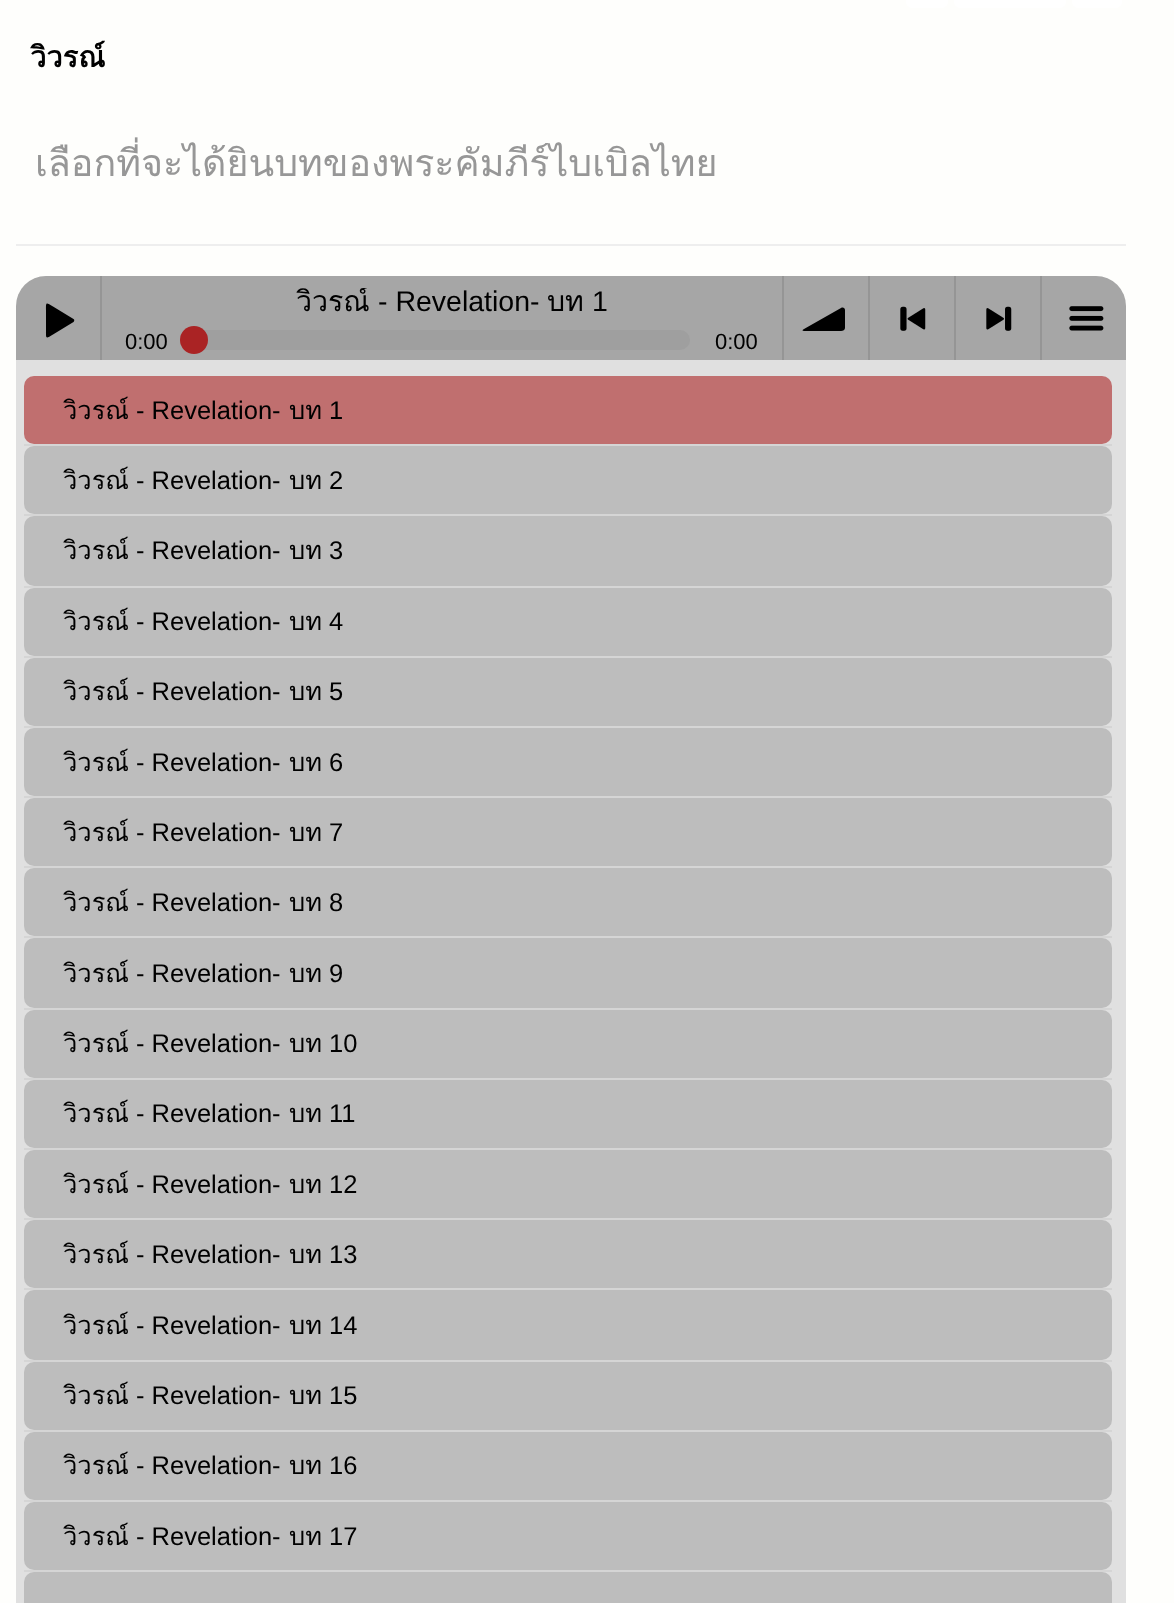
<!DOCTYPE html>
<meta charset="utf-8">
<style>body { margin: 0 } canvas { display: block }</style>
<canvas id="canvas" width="1174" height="1603"></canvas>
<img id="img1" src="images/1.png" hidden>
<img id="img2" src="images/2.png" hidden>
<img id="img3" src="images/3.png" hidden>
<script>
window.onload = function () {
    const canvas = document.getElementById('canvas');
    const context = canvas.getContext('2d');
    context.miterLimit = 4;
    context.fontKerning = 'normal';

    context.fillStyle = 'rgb(254, 254, 252)';
    context.fillRect(0, 0, 1174, 1603);
    context.fillStyle = 'rgb(255, 255, 255)';
    context.beginPath();
    context.roundRect(906, -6, 42, 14, 6);
    context.fill();
    context.beginPath();
    context.roundRect(954, -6, 112, 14, 6);
    context.fill();
    context.beginPath();
    context.roundRect(1072, -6, 50, 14, 6);
    context.fill();
    context.fillStyle = 'rgb(238, 238, 238)';
    context.fillRect(16, 244, 1110, 2);
    context.fillStyle = 'rgb(166, 166, 166)';
    context.beginPath();
    context.roundRect(16, 276, 1110, 84, [30, 30, 0, 0]);
    context.fill();
    context.fillStyle = 'rgb(149, 149, 149)';
    context.fillRect(100, 276, 2, 84);
    context.fillStyle = 'rgb(0, 0, 0)';
    context.beginPath();
    context.moveTo(73.5, 319);
    context.lineTo(53, 306.5);
    context.bezierCurveTo(45.5, 302, 46, 302, 46, 310.5);
    context.lineTo(46, 330);
    context.bezierCurveTo(46, 339, 45.5, 339, 53, 334.5);
    context.lineTo(73.5, 322);
    context.bezierCurveTo(74.5, 321, 74.5, 319.5, 73.5, 319);
    context.closePath();
    context.fill();
    context.fillStyle = 'rgb(149, 149, 149)';
    context.fillRect(782, 276, 2, 84);
    context.fillStyle = 'rgb(159, 159, 159)';
    context.beginPath();
    context.roundRect(194, 330, 496, 20, 10);
    context.fill();
    context.fillStyle = 'rgb(170, 35, 36)';
    context.beginPath();
    context.arc(194, 340, 14, 0, 2 * Math.PI);
    context.fill();
    context.fillStyle = 'rgb(149, 149, 149)';
    context.fillRect(868, 276, 2, 84);
    context.fillStyle = 'rgb(0, 0, 0)';
    context.beginPath();
    context.moveTo(845, 328);
    context.bezierCurveTo(845, 330, 843, 331, 841, 331);
    context.lineTo(804, 331);
    context.bezierCurveTo(802, 331, 802, 330, 804, 329);
    context.lineTo(841, 308);
    context.bezierCurveTo(843, 307, 845, 308, 845, 310);
    context.closePath();
    context.fill();
    context.fillStyle = 'rgb(149, 149, 149)';
    context.fillRect(954, 276, 2, 84);
    context.drawImage(document.getElementById('img1'), 900, 306, 26, 25);
    context.fillRect(1040, 276, 2, 84);
    context.drawImage(document.getElementById('img2'), 986, 306, 26, 25);
    context.drawImage(document.getElementById('img3'), 1069, 306, 35, 25);
    context.fillStyle = 'rgb(224, 224, 224)';
    context.fillRect(16, 360, 1110, 1243);
    context.fillStyle = 'rgb(213, 213, 213)';
    context.fillRect(24, 444, 1088, 2);
    context.fillStyle = 'rgb(192, 111, 111)';
    context.beginPath();
    context.roundRect(24, 376, 1088, 68, 10);
    context.fill();
    context.fillStyle = 'rgb(213, 213, 213)';
    context.fillRect(24, 514, 1088, 2);
    context.fillStyle = 'rgb(189, 189, 189)';
    context.beginPath();
    context.roundRect(24, 446, 1088, 68, 10);
    context.fill();
    context.fillStyle = 'rgb(213, 213, 213)';
    context.fillRect(24, 586, 1088, 2);
    context.fillStyle = 'rgb(189, 189, 189)';
    context.beginPath();
    context.roundRect(24, 516, 1088, 70, 10);
    context.fill();
    context.fillStyle = 'rgb(213, 213, 213)';
    context.fillRect(24, 656, 1088, 2);
    context.fillStyle = 'rgb(189, 189, 189)';
    context.beginPath();
    context.roundRect(24, 588, 1088, 68, 10);
    context.fill();
    context.fillStyle = 'rgb(213, 213, 213)';
    context.fillRect(24, 726, 1088, 2);
    context.fillStyle = 'rgb(189, 189, 189)';
    context.beginPath();
    context.roundRect(24, 658, 1088, 68, 10);
    context.fill();
    context.fillStyle = 'rgb(213, 213, 213)';
    context.fillRect(24, 796, 1088, 2);
    context.fillStyle = 'rgb(189, 189, 189)';
    context.beginPath();
    context.roundRect(24, 728, 1088, 68, 10);
    context.fill();
    context.fillStyle = 'rgb(213, 213, 213)';
    context.fillRect(24, 866, 1088, 2);
    context.fillStyle = 'rgb(189, 189, 189)';
    context.beginPath();
    context.roundRect(24, 798, 1088, 68, 10);
    context.fill();
    context.fillStyle = 'rgb(213, 213, 213)';
    context.fillRect(24, 936, 1088, 2);
    context.fillStyle = 'rgb(189, 189, 189)';
    context.beginPath();
    context.roundRect(24, 868, 1088, 68, 10);
    context.fill();
    context.fillStyle = 'rgb(213, 213, 213)';
    context.fillRect(24, 1008, 1088, 2);
    context.fillStyle = 'rgb(189, 189, 189)';
    context.beginPath();
    context.roundRect(24, 938, 1088, 70, 10);
    context.fill();
    context.fillStyle = 'rgb(213, 213, 213)';
    context.fillRect(24, 1078, 1088, 2);
    context.fillStyle = 'rgb(189, 189, 189)';
    context.beginPath();
    context.roundRect(24, 1010, 1088, 68, 10);
    context.fill();
    context.fillStyle = 'rgb(213, 213, 213)';
    context.fillRect(24, 1148, 1088, 2);
    context.fillStyle = 'rgb(189, 189, 189)';
    context.beginPath();
    context.roundRect(24, 1080, 1088, 68, 10);
    context.fill();
    context.fillStyle = 'rgb(213, 213, 213)';
    context.fillRect(24, 1218, 1088, 2);
    context.fillStyle = 'rgb(189, 189, 189)';
    context.beginPath();
    context.roundRect(24, 1150, 1088, 68, 10);
    context.fill();
    context.fillStyle = 'rgb(213, 213, 213)';
    context.fillRect(24, 1288, 1088, 2);
    context.fillStyle = 'rgb(189, 189, 189)';
    context.beginPath();
    context.roundRect(24, 1220, 1088, 68, 10);
    context.fill();
    context.fillStyle = 'rgb(213, 213, 213)';
    context.fillRect(24, 1360, 1088, 2);
    context.fillStyle = 'rgb(189, 189, 189)';
    context.beginPath();
    context.roundRect(24, 1290, 1088, 70, 10);
    context.fill();
    context.fillStyle = 'rgb(213, 213, 213)';
    context.fillRect(24, 1430, 1088, 2);
    context.fillStyle = 'rgb(189, 189, 189)';
    context.beginPath();
    context.roundRect(24, 1362, 1088, 68, 10);
    context.fill();
    context.fillStyle = 'rgb(213, 213, 213)';
    context.fillRect(24, 1500, 1088, 2);
    context.fillStyle = 'rgb(189, 189, 189)';
    context.beginPath();
    context.roundRect(24, 1432, 1088, 68, 10);
    context.fill();
    context.fillStyle = 'rgb(213, 213, 213)';
    context.fillRect(24, 1570, 1088, 2);
    context.fillStyle = 'rgb(189, 189, 189)';
    context.beginPath();
    context.roundRect(24, 1502, 1088, 68, 10);
    context.fill();
    context.beginPath();
    context.roundRect(24, 1572, 1088, 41, 10);
    context.fill();
    context.font = 'bold 29px Loma';
    context.fillStyle = 'rgb(0, 0, 0)';
    context.fillText('วิวรณ์', 30, 67);
    context.font = '37.6px Loma';
    context.fillStyle = 'rgb(151, 151, 151)';
    context.fillText('เลือกที่จะได้ยินบทของพระคัมภีร์ไบเบิลไทย', 35, 176);
    context.save();
    context.beginPath();
    context.rect(124, 288, 636, 42);
    context.clip();
    context.font = '28.5px Loma';
    context.fillStyle = 'rgb(0, 0, 0)';
    context.fillText('วิวรณ์', 296, 311);
    context.restore();
    context.font = '28.5px Liberation Sans';
    context.fillStyle = 'rgb(0, 0, 0)';
    context.fillText('- Revelation-', 378, 311);
    context.font = '28.5px Loma';
    context.fillText('บท', 547, 311);
    context.font = '28.5px Liberation Sans';
    context.fillText('1', 592, 311);
    context.font = '22px Liberation Sans';
    context.fillText('0:00', 125, 349);
    context.fillText('0:00', 715, 349);
    context.font = '25.5px Loma';
    context.fillText('วิวรณ์', 63, 419);
    context.font = '25.5px Liberation Sans';
    context.fillText('- Revelation-', 136, 419);
    context.font = '25.5px Loma';
    context.fillText('บท', 289, 419);
    context.font = '25.5px Liberation Sans';
    context.fillText('1', 329, 419);
    context.font = '25.5px Loma';
    context.fillText('วิวรณ์', 63, 489);
    context.font = '25.5px Liberation Sans';
    context.fillText('- Revelation-', 136, 489);
    context.font = '25.5px Loma';
    context.fillText('บท', 289, 489);
    context.font = '25.5px Liberation Sans';
    context.fillText('2', 329, 489);
    context.font = '25.5px Loma';
    context.fillText('วิวรณ์', 63, 559);
    context.font = '25.5px Liberation Sans';
    context.fillText('- Revelation-', 136, 559);
    context.font = '25.5px Loma';
    context.fillText('บท', 289, 559);
    context.font = '25.5px Liberation Sans';
    context.fillText('3', 329, 559);
    context.font = '25.5px Loma';
    context.fillText('วิวรณ์', 63, 630);
    context.font = '25.5px Liberation Sans';
    context.fillText('- Revelation-', 136, 630);
    context.font = '25.5px Loma';
    context.fillText('บท', 289, 630);
    context.font = '25.5px Liberation Sans';
    context.fillText('4', 329, 630);
    context.font = '25.5px Loma';
    context.fillText('วิวรณ์', 63, 700);
    context.font = '25.5px Liberation Sans';
    context.fillText('- Revelation-', 136, 700);
    context.font = '25.5px Loma';
    context.fillText('บท', 289, 700);
    context.font = '25.5px Liberation Sans';
    context.fillText('5', 329, 700);
    context.font = '25.5px Loma';
    context.fillText('วิวรณ์', 63, 771);
    context.font = '25.5px Liberation Sans';
    context.fillText('- Revelation-', 136, 771);
    context.font = '25.5px Loma';
    context.fillText('บท', 289, 771);
    context.font = '25.5px Liberation Sans';
    context.fillText('6', 329, 771);
    context.font = '25.5px Loma';
    context.fillText('วิวรณ์', 63, 841);
    context.font = '25.5px Liberation Sans';
    context.fillText('- Revelation-', 136, 841);
    context.font = '25.5px Loma';
    context.fillText('บท', 289, 841);
    context.font = '25.5px Liberation Sans';
    context.fillText('7', 329, 841);
    context.font = '25.5px Loma';
    context.fillText('วิวรณ์', 63, 911);
    context.font = '25.5px Liberation Sans';
    context.fillText('- Revelation-', 136, 911);
    context.font = '25.5px Loma';
    context.fillText('บท', 289, 911);
    context.font = '25.5px Liberation Sans';
    context.fillText('8', 329, 911);
    context.font = '25.5px Loma';
    context.fillText('วิวรณ์', 63, 982);
    context.font = '25.5px Liberation Sans';
    context.fillText('- Revelation-', 136, 982);
    context.font = '25.5px Loma';
    context.fillText('บท', 289, 982);
    context.font = '25.5px Liberation Sans';
    context.fillText('9', 329, 982);
    context.font = '25.5px Loma';
    context.fillText('วิวรณ์', 63, 1052);
    context.font = '25.5px Liberation Sans';
    context.fillText('- Revelation-', 136, 1052);
    context.font = '25.5px Loma';
    context.fillText('บท', 289, 1052);
    context.font = '25.5px Liberation Sans';
    context.fillText('10', 329, 1052);
    context.font = '25.5px Loma';
    context.fillText('วิวรณ์', 63, 1122);
    context.font = '25.5px Liberation Sans';
    context.fillText('- Revelation-', 136, 1122);
    context.font = '25.5px Loma';
    context.fillText('บท', 289, 1122);
    context.font = '25.5px Liberation Sans';
    context.fillText('11', 329, 1122);
    context.font = '25.5px Loma';
    context.fillText('วิวรณ์', 63, 1193);
    context.font = '25.5px Liberation Sans';
    context.fillText('- Revelation-', 136, 1193);
    context.font = '25.5px Loma';
    context.fillText('บท', 289, 1193);
    context.font = '25.5px Liberation Sans';
    context.fillText('12', 329, 1193);
    context.font = '25.5px Loma';
    context.fillText('วิวรณ์', 63, 1263);
    context.font = '25.5px Liberation Sans';
    context.fillText('- Revelation-', 136, 1263);
    context.font = '25.5px Loma';
    context.fillText('บท', 289, 1263);
    context.font = '25.5px Liberation Sans';
    context.fillText('13', 329, 1263);
    context.font = '25.5px Loma';
    context.fillText('วิวรณ์', 63, 1334);
    context.font = '25.5px Liberation Sans';
    context.fillText('- Revelation-', 136, 1334);
    context.font = '25.5px Loma';
    context.fillText('บท', 289, 1334);
    context.font = '25.5px Liberation Sans';
    context.fillText('14', 329, 1334);
    context.font = '25.5px Loma';
    context.fillText('วิวรณ์', 63, 1404);
    context.font = '25.5px Liberation Sans';
    context.fillText('- Revelation-', 136, 1404);
    context.font = '25.5px Loma';
    context.fillText('บท', 289, 1404);
    context.font = '25.5px Liberation Sans';
    context.fillText('15', 329, 1404);
    context.font = '25.5px Loma';
    context.fillText('วิวรณ์', 63, 1474);
    context.font = '25.5px Liberation Sans';
    context.fillText('- Revelation-', 136, 1474);
    context.font = '25.5px Loma';
    context.fillText('บท', 289, 1474);
    context.font = '25.5px Liberation Sans';
    context.fillText('16', 329, 1474);
    context.font = '25.5px Loma';
    context.fillText('วิวรณ์', 63, 1545);
    context.font = '25.5px Liberation Sans';
    context.fillText('- Revelation-', 136, 1545);
    context.font = '25.5px Loma';
    context.fillText('บท', 289, 1545);
    context.font = '25.5px Liberation Sans';
    context.fillText('17', 329, 1545);
};
</script>
